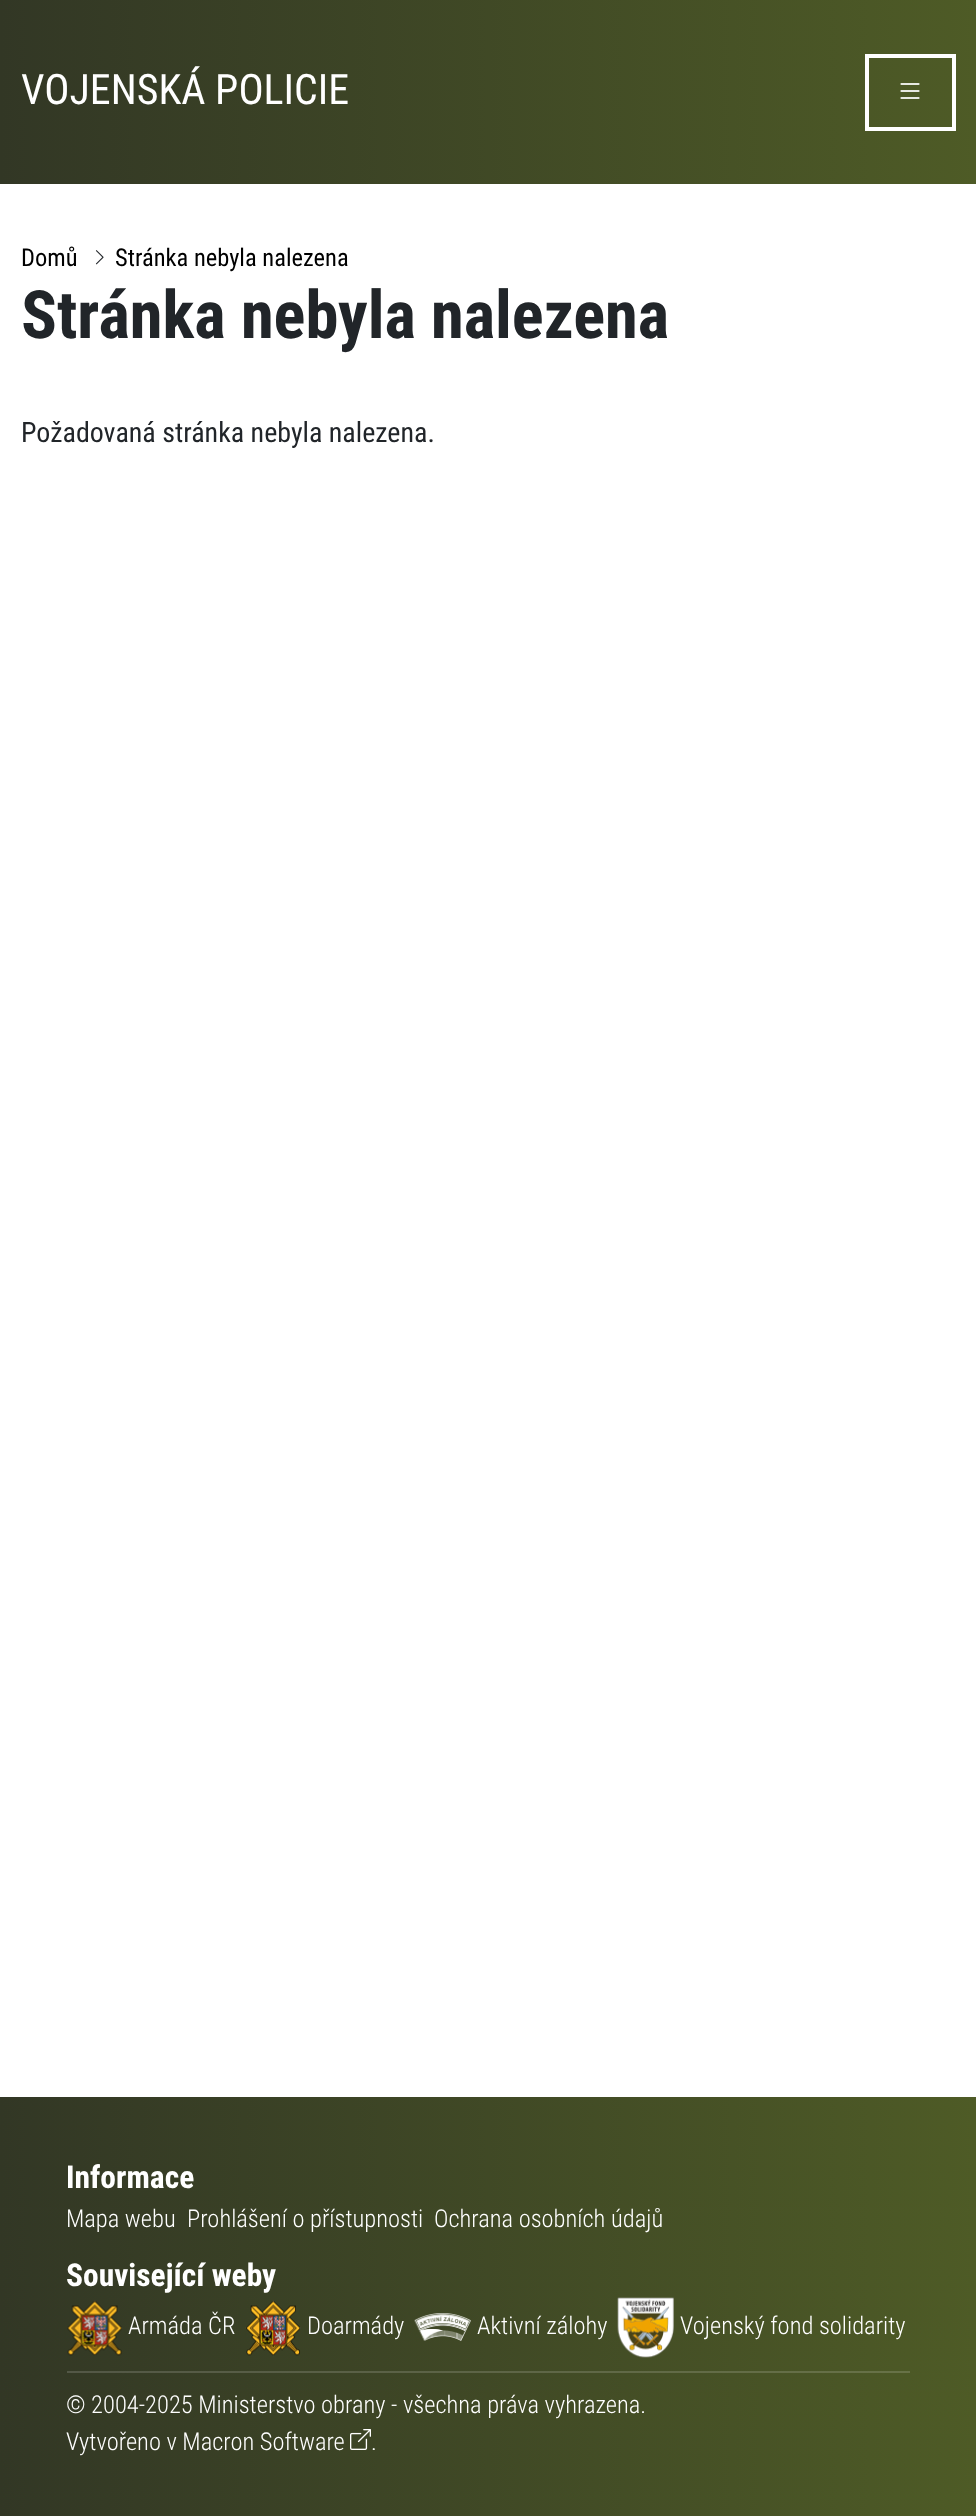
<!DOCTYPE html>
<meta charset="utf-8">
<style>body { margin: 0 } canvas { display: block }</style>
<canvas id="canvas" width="976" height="2516"></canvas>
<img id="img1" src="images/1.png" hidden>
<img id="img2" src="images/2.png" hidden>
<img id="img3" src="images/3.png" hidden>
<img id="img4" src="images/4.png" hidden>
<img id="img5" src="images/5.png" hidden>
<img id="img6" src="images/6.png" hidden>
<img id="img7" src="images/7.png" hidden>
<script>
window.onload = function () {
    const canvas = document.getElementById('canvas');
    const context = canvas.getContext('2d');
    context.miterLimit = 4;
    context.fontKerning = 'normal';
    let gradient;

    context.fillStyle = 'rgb(255, 255, 255)';
    context.fillRect(0, 0, 976, 2516);
    gradient = context.createLinearGradient(0, 92, 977, 92);
    gradient.addColorStop(0, 'rgb(50, 55, 37)');
    gradient.addColorStop(1, 'rgb(78, 91, 38)');
    context.fillStyle = gradient;
    context.fillRect(0, 0, 976, 184);
    context.strokeStyle = 'rgb(255, 255, 255)';
    context.lineWidth = 4;
    context.strokeRect(867, 56, 87, 73);
    context.drawImage(document.getElementById('img1'), 900, 83, 20, 16);
    context.drawImage(document.getElementById('img2'), 95, 250, 9, 15);
    gradient = context.createLinearGradient(0, 2307, 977, 2307);
    gradient.addColorStop(0, 'rgb(50, 55, 37)');
    gradient.addColorStop(1, 'rgb(78, 91, 38)');
    context.fillStyle = gradient;
    context.fillRect(0, 2097, 976, 419);
    gradient = context.createLinearGradient(0, 2307, 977, 2307);
    gradient.addColorStop(0, 'rgb(81, 85, 70)');
    gradient.addColorStop(1, 'rgb(105, 116, 71)');
    context.fillStyle = gradient;
    context.fillRect(67, 2371, 843, 2);
    context.drawImage(document.getElementById('img3'), 67, 2300, 56, 56);
    context.drawImage(document.getElementById('img4'), 245, 2300, 56, 57);
    context.drawImage(document.getElementById('img5'), 414, 2313, 57, 28);
    context.drawImage(document.getElementById('img6'), 617, 2297, 57, 61);
    context.drawImage(document.getElementById('img7'), 350, 2429, 21, 21);
    context.font = '42px Roboto Condensed';
    context.fillStyle = 'rgb(255, 255, 255)';
    context.fillText('VOJENSKÁ POLICIE', 21, 104);
    context.font = '24.5px Roboto Condensed';
    context.fillStyle = 'rgb(0, 0, 0)';
    context.fillText('Domů', 21, 266);
    context.fillText('Stránka nebyla nalezena', 115, 266);
    context.font = 'bold 66.5px Roboto Condensed';
    context.fillStyle = 'rgb(33, 37, 41)';
    context.fillText('Stránka nebyla nalezena', 21, 338);
    context.font = '28px Roboto Condensed';
    context.fillText('Požadovaná stránka nebyla nalezena.', 21, 442);
    context.font = 'bold 31.5px Roboto Condensed';
    context.fillStyle = 'rgb(255, 255, 255)';
    context.fillText('Informace', 66, 2188);
    context.font = '300 24.5px Roboto Condensed';
    context.fillText('Mapa webu', 66, 2227);
    context.fillText('Prohlášení o přístupnosti', 187, 2227);
    context.fillText('Ochrana osobních údajů', 434, 2227);
    context.font = 'bold 31.5px Roboto Condensed';
    context.fillText('Související weby', 66, 2286);
    context.font = '300 24.5px Roboto Condensed';
    context.fillText('Armáda ČR', 128, 2334);
    context.fillText('Doarmády', 307, 2334);
    context.fillText('Aktivní zálohy', 477, 2334);
    context.fillText('Vojenský fond solidarity', 680, 2334);
    context.fillText('© 2004-2025 Ministerstvo obrany - všechna práva vyhrazena.', 66, 2413);
    context.fillText('Vytvořeno v Macron Software', 66, 2450);
    context.fillText('.', 371, 2450);
};
</script>
